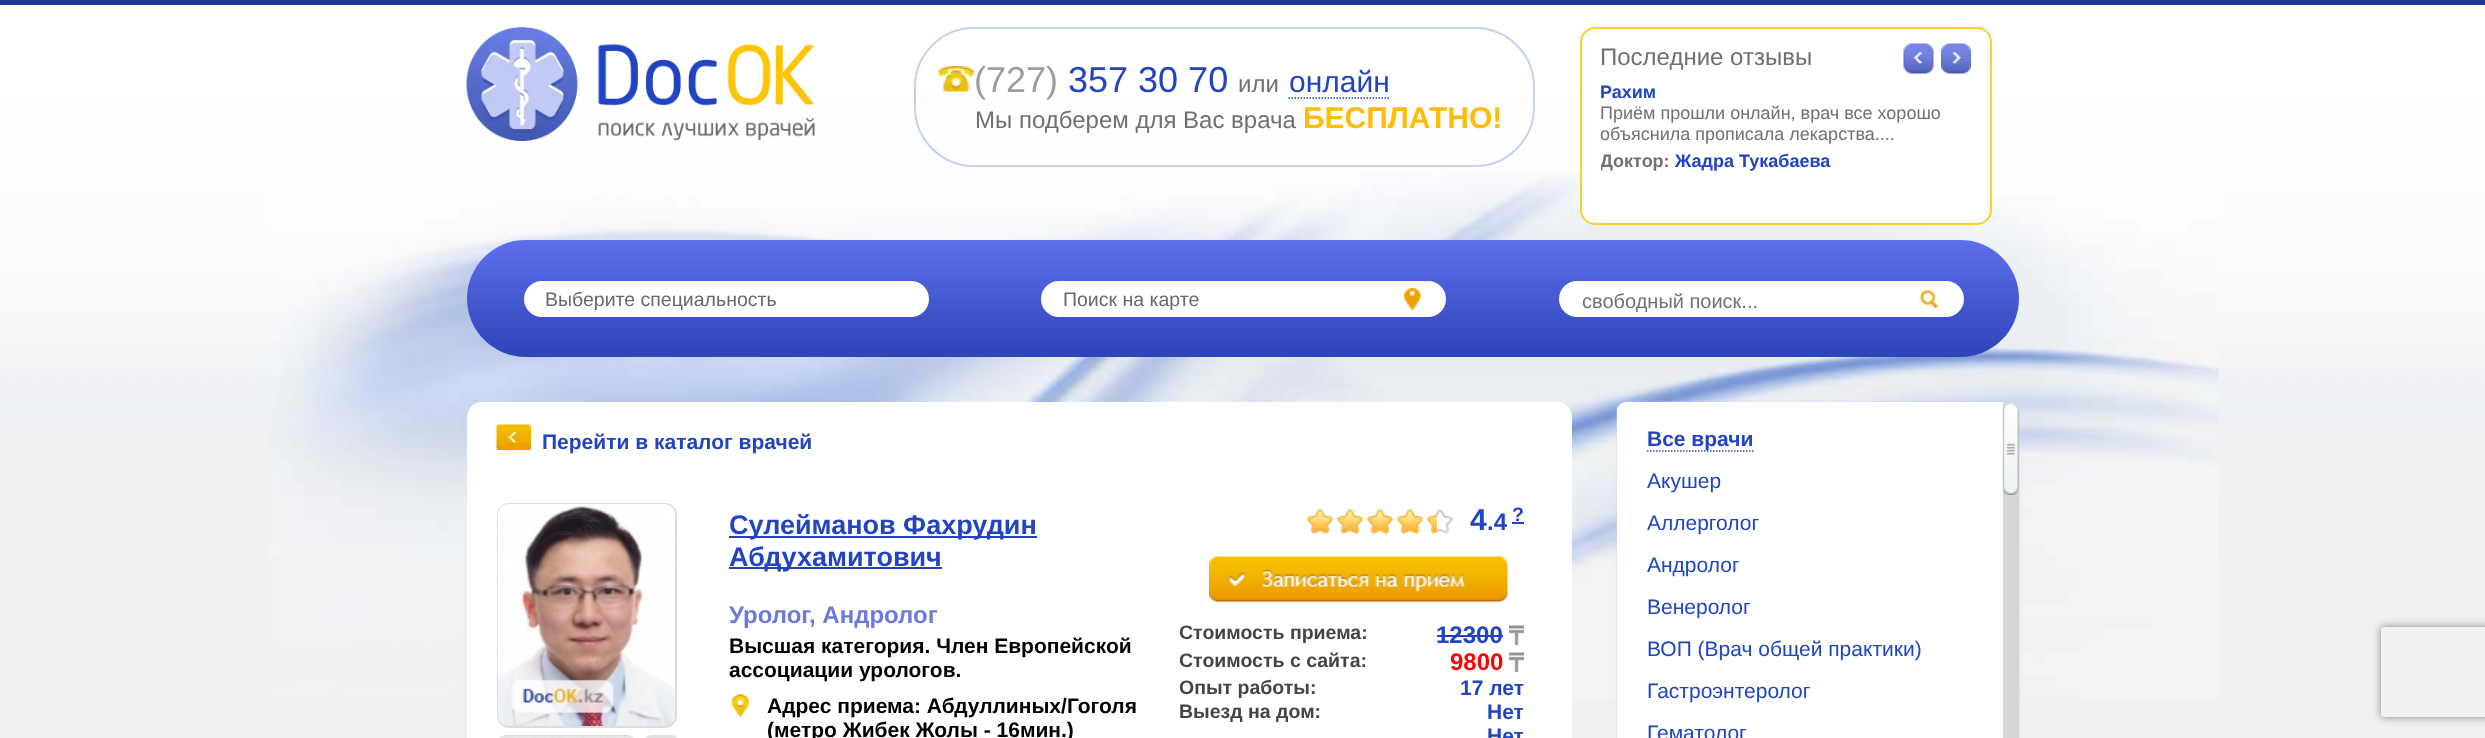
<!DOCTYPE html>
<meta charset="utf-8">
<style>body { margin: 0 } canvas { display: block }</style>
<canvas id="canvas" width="2485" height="738"></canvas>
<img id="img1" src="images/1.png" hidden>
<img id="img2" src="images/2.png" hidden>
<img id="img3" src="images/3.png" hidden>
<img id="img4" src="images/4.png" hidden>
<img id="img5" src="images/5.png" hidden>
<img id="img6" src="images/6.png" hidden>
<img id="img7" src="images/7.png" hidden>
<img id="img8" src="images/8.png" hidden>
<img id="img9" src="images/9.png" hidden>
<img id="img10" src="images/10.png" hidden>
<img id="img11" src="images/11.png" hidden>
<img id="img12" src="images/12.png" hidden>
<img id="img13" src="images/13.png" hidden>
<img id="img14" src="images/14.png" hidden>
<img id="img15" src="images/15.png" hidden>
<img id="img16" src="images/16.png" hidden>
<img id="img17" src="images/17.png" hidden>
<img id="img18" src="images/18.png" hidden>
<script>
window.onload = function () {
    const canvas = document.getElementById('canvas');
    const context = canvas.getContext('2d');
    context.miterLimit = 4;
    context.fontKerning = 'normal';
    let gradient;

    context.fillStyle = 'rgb(241, 241, 241)';
    context.fillRect(0, 0, 2485, 738);
    context.drawImage(document.getElementById('img1'), 0, 5, 2485, 424);
    context.drawImage(document.getElementById('img2'), 269, 172, 1950, 526);
    context.fillStyle = 'rgb(29, 57, 154)';
    context.fillRect(0, 0, 2485, 5);
    context.drawImage(document.getElementById('img3'), 466, 27, 349, 114);
    context.beginPath();
    context.roundRect(915, 28, 619, 138, 59);
    context.strokeStyle = 'rgb(198, 210, 233)';
    context.lineWidth = 2;
    context.stroke();
    context.drawImage(document.getElementById('img4'), 937, 66, 37, 26);
    context.beginPath();
    context.moveTo(1288.5, 98);
    context.lineTo(1389, 98);
    context.strokeStyle = 'rgb(32, 68, 194)';
    context.lineWidth = 1.5;
    context.setLineDash([1.5, 1.5]);
    context.stroke();
    context.fillStyle = 'rgb(255, 255, 255)';
    context.beginPath();
    context.roundRect(1581, 28, 410, 196, 14);
    context.fill();
    context.strokeStyle = 'rgb(254, 207, 44)';
    context.lineWidth = 2;
    context.setLineDash([]);
    context.stroke();
    context.drawImage(document.getElementById('img5'), 1903, 43, 31, 31);
    context.drawImage(document.getElementById('img6'), 1941, 43, 30, 31);
    gradient = context.createLinearGradient(1243, 240, 1243, 357);
    gradient.addColorStop(0, 'rgb(94, 111, 237)');
    gradient.addColorStop(1, 'rgb(45, 68, 183)');
    context.fillStyle = gradient;
    context.beginPath();
    context.roundRect(467, 240, 1552, 117, 58.5);
    context.fill();
    context.fillStyle = 'rgb(255, 255, 255)';
    context.beginPath();
    context.roundRect(524, 281, 405, 36, 18);
    context.fill();
    context.beginPath();
    context.roundRect(1041, 281, 405, 36, 18);
    context.fill();
    context.drawImage(document.getElementById('img7'), 1403, 288, 18, 23);
    context.beginPath();
    context.roundRect(1559, 281, 405, 36, 18);
    context.fill();
    context.drawImage(document.getElementById('img8'), 1918, 289, 22, 22);
    context.beginPath();
    context.roundRect(467, 402, 1105, 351, 15);
    context.fill();
    context.drawImage(document.getElementById('img9'), 496, 424, 35, 26);
    context.beginPath();
    context.roundRect(498, 504, 178, 223, 11);
    context.strokeStyle = 'rgb(221, 221, 221)';
    context.stroke();
    context.drawImage(document.getElementById('img10'), 498, 504, 177, 222);
    context.drawImage(document.getElementById('img11'), 499, 735, 135, 3);
    context.drawImage(document.getElementById('img12'), 645, 735, 33, 3);
    context.fillStyle = 'rgb(37, 63, 191)';
    context.fillRect(729, 536, 308, 2);
    context.fillRect(729, 567, 213, 2);
    context.drawImage(document.getElementById('img13'), 730, 694, 21, 24);
    context.drawImage(document.getElementById('img14'), 1306, 508, 148, 27);
    context.drawImage(document.getElementById('img15'), 1306, 508, 131, 27);
    context.fillRect(1512, 522, 12, 2);
    context.drawImage(document.getElementById('img16'), 1209, 556, 299, 46);
    context.drawImage(document.getElementById('img17'), 1509, 625, 15, 20);
    context.drawImage(document.getElementById('img17'), 1509, 652, 15, 20);
    context.fillStyle = 'rgb(204, 204, 255)';
    context.filter = 'blur(1px)';
    context.beginPath();
    context.roundRect(1617, 402, 402, 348, 9);
    context.fill();
    context.filter = 'none';
    context.fillStyle = 'rgb(255, 255, 255)';
    context.beginPath();
    context.roundRect(1617, 402, 402, 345, 9);
    context.fill();
    context.beginPath();
    context.moveTo(1647, 451);
    context.lineTo(1753.5, 451);
    context.strokeStyle = 'rgb(32, 68, 194)';
    context.lineWidth = 1.5;
    context.setLineDash([1.5, 1.5]);
    context.stroke();
    context.fillStyle = 'rgb(214, 214, 214)';
    context.beginPath();
    context.moveTo(2003, 402);
    context.lineTo(2010, 402);
    context.bezierCurveTo(2015, 402, 2019, 406, 2019, 411);
    context.lineTo(2019, 738);
    context.bezierCurveTo(2019, 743, 2015, 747, 2010, 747);
    context.lineTo(2003, 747);
    context.closePath();
    context.fill();
    context.drawImage(document.getElementById('img18'), 2002, 403, 17, 92);
    context.save();
    context.beginPath();
    context.moveTo(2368, 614);
    context.lineTo(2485, 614);
    context.lineTo(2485, 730);
    context.lineTo(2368, 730);
    context.closePath();
    context.moveTo(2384, 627);
    context.lineTo(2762, 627);
    context.bezierCurveTo(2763.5, 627, 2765, 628.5, 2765, 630);
    context.lineTo(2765, 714);
    context.bezierCurveTo(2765, 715.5, 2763.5, 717, 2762, 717);
    context.lineTo(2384, 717);
    context.bezierCurveTo(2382.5, 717, 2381, 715.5, 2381, 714);
    context.lineTo(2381, 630);
    context.bezierCurveTo(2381, 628.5, 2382.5, 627, 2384, 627);
    context.closePath();
    context.clip('evenodd');
    context.fillStyle = 'rgb(128, 128, 128)';
    context.filter = 'blur(4px)';
    context.beginPath();
    context.roundRect(2381, 627, 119, 90, 3);
    context.fill();
    context.filter = 'none';
    context.restore();
    context.font = '36px Liberation Sans';
    context.fillStyle = 'rgb(156, 156, 156)';
    context.fillText('(727)', 974, 92);
    context.fillStyle = 'rgb(32, 68, 194)';
    context.fillText('357 30 70', 1068, 92);
    context.font = '24px Liberation Sans';
    context.fillStyle = 'rgb(112, 112, 112)';
    context.fillText('или', 1238, 92);
    context.font = '30px Liberation Sans';
    context.fillStyle = 'rgb(32, 68, 194)';
    context.fillText('онлайн', 1289, 92);
    context.font = '24px Liberation Sans';
    context.fillStyle = 'rgb(112, 112, 112)';
    context.fillText('Мы подберем для Вас врача', 975, 128);
    context.font = 'bold 30px Liberation Sans';
    context.fillStyle = 'rgb(254, 189, 12)';
    context.fillText('БЕСПЛАТНО!', 1303, 128);
    context.font = '24px Liberation Sans';
    context.fillStyle = 'rgb(112, 112, 112)';
    context.fillText('Последние отзывы', 1600, 65);
    context.font = 'bold 18px Liberation Sans';
    context.fillStyle = 'rgb(32, 68, 194)';
    context.fillText('Рахим', 1600, 98);
    context.font = '18px Liberation Sans';
    context.fillStyle = 'rgb(112, 112, 112)';
    context.fillText('Приём прошли онлайн, врач все хорошо', 1600, 119);
    context.fillText('объяснила прописала лекарства....', 1600, 140);
    context.save();
    context.beginPath();
    context.rect(1601, 81, 369, 96);
    context.clip();
    context.font = 'bold 18px Liberation Sans';
    context.fillText('Доктор:', 1600, 167);
    context.restore();
    context.font = 'bold 18px Liberation Sans';
    context.fillStyle = 'rgb(32, 68, 194)';
    context.fillText('Жадра Тукабаева', 1675, 167);
    context.font = '19.5px Liberation Sans';
    context.fillStyle = 'rgb(104, 104, 104)';
    context.fillText('Выберите специальность', 545, 306);
    context.fillText('Поиск на карте', 1063, 306);
    context.save();
    context.beginPath();
    context.rect(1583, 290, 372, 22);
    context.clip();
    context.font = '20px Liberation Sans';
    context.fillStyle = 'rgb(112, 112, 112)';
    context.fillText('свободный поиск...', 1582, 308);
    context.restore();
    context.font = 'bold 21px Liberation Sans';
    context.fillStyle = 'rgb(32, 68, 194)';
    context.fillText('Перейти в каталог врачей', 542, 449);
    context.font = 'bold 27px Liberation Sans';
    context.fillText('Сулейманов Фахрудин', 729, 534);
    context.fillText('Абдухамитович', 729, 566);
    context.font = 'bold 24px Liberation Sans';
    context.fillStyle = 'rgb(110, 122, 219)';
    context.fillText('Уролог', 729, 623);
    context.fillText(', Андролог', 809, 623);
    context.font = 'bold 21px Liberation Sans';
    context.fillStyle = 'rgb(0, 0, 0)';
    context.fillText('Высшая категория. Член Европейской', 729, 653);
    context.fillText('ассоциации урологов.', 729, 677);
    context.fillText('Адрес приема: Абдуллиных/Гоголя', 767, 713);
    context.fillText('(метро Жибек Жолы - 16мин.)', 767, 737);
    context.font = 'bold 30px Liberation Sans';
    context.fillStyle = 'rgb(32, 68, 194)';
    context.fillText('4', 1470, 530);
    context.font = 'bold 24px Liberation Sans';
    context.fillText('.4', 1487, 530);
    context.font = 'bold 19.5px Liberation Sans';
    context.fillText('?', 1512, 521);
    context.fillStyle = 'rgb(68, 68, 68)';
    context.fillText('Стоимость приема:', 1179, 639);
    context.font = 'bold 24px Liberation Sans';
    context.fillStyle = 'rgb(32, 68, 194)';
    context.fillText('12300', 1436, 643);
    context.fillStyle = 'rgb(37, 63, 191)';
    context.fillRect(1437, 635, 66, 2);
    context.font = 'bold 19.5px Liberation Sans';
    context.fillStyle = 'rgb(68, 68, 68)';
    context.fillText('Стоимость с сайта:', 1179, 667);
    context.font = 'bold 24px Liberation Sans';
    context.fillStyle = 'rgb(255, 0, 0)';
    context.fillText('9800', 1450, 670);
    context.font = 'bold 19.5px Liberation Sans';
    context.fillStyle = 'rgb(68, 68, 68)';
    context.fillText('Опыт работы:', 1179, 694);
    context.font = 'bold 21px Liberation Sans';
    context.fillStyle = 'rgb(32, 68, 194)';
    context.fillText('17 лет', 1460, 695);
    context.font = 'bold 19.5px Liberation Sans';
    context.fillStyle = 'rgb(68, 68, 68)';
    context.fillText('Выезд на дом:', 1179, 718);
    context.font = 'bold 21px Liberation Sans';
    context.fillStyle = 'rgb(32, 68, 194)';
    context.fillText('Нет', 1487, 719);
    context.fillText('Нет', 1487, 743);
    context.fillText('Все врачи', 1647, 446);
    context.font = '21px Liberation Sans';
    context.fillText('Акушер', 1647, 488);
    context.fillText('Аллерголог', 1647, 530);
    context.fillText('Андролог', 1647, 572);
    context.fillText('Венеролог', 1647, 614);
    context.fillText('ВОП (Врач общей практики)', 1647, 656);
    context.fillText('Гастроэнтеролог', 1647, 698);
    context.fillText('Гематолог', 1647, 740);
};
</script>
